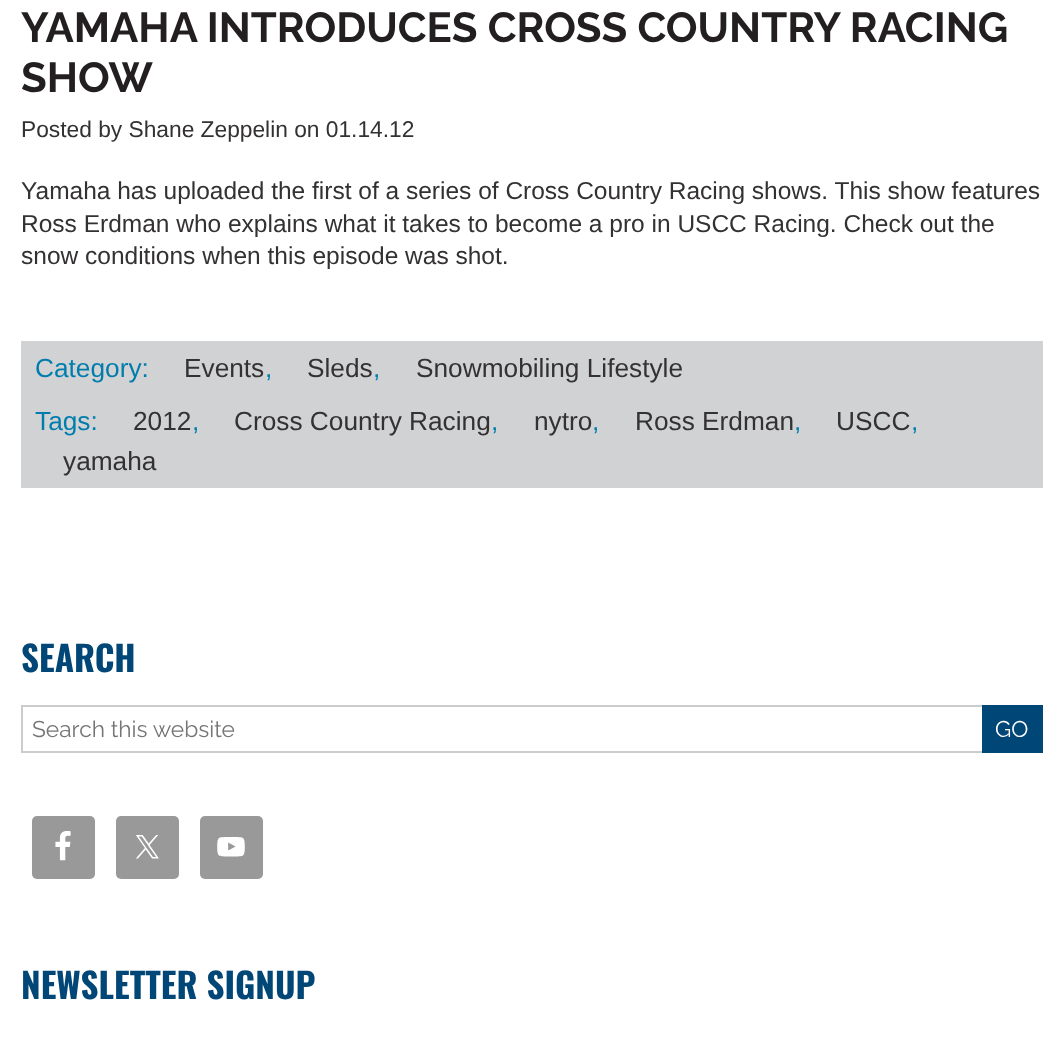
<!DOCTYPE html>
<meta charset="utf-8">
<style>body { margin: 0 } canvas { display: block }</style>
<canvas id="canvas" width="1063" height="1045"></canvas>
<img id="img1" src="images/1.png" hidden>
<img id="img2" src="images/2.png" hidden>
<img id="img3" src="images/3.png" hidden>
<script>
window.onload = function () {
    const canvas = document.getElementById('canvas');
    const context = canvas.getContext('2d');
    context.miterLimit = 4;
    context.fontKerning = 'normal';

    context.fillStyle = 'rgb(255, 255, 255)';
    context.fillRect(0, 0, 1063, 1045);
    context.fillStyle = 'rgb(209, 210, 212)';
    context.fillRect(21, 341, 1022, 147);
    context.strokeStyle = 'rgb(204, 204, 204)';
    context.lineWidth = 2;
    context.strokeRect(22, 706, 1020, 46);
    context.fillStyle = 'rgb(0, 70, 118)';
    context.fillRect(982, 705, 61, 48);
    context.fillStyle = 'rgb(153, 153, 153)';
    context.beginPath();
    context.roundRect(32, 816, 63, 63, 5);
    context.fill();
    context.drawImage(document.getElementById('img1'), 55, 831, 16, 30);
    context.beginPath();
    context.roundRect(116, 816, 63, 63, 5);
    context.fill();
    context.drawImage(document.getElementById('img2'), 136, 835, 23, 24);
    context.beginPath();
    context.roundRect(200, 816, 63, 63, 5);
    context.fill();
    context.drawImage(document.getElementById('img3'), 217, 837, 28, 20);
    context.font = 'bold 42px Raleway';
    context.fillStyle = 'rgb(35, 31, 32)';
    context.fillText('YAMAHA INTRODUCES CROSS COUNTRY RACING', 21, 42);
    context.fillText('SHOW', 21, 92);
    context.font = '22.75px Liberation Sans';
    context.fillStyle = 'rgb(51, 49, 50)';
    context.fillText('Posted by Shane Zeppelin on 01.14.12', 21, 137);
    context.font = '24.5px Liberation Sans';
    context.fillText('Yamaha has uploaded the first of a series of Cross Country Racing shows. This show features', 21, 199);
    context.fillText('Ross Erdman who explains what it takes to become a pro in USCC Racing. Check out the', 21, 232);
    context.fillText('snow conditions when this episode was shot.', 21, 264);
    context.font = '26.25px Liberation Sans';
    context.fillStyle = 'rgb(0, 125, 172)';
    context.fillText('Category:', 35, 377);
    context.fillStyle = 'rgb(51, 49, 50)';
    context.fillText('Events', 184, 377);
    context.fillStyle = 'rgb(0, 125, 172)';
    context.fillText(',', 265, 377);
    context.fillStyle = 'rgb(51, 49, 50)';
    context.fillText('Sleds', 307, 377);
    context.fillStyle = 'rgb(0, 125, 172)';
    context.fillText(',', 373, 377);
    context.fillStyle = 'rgb(51, 49, 50)';
    context.fillText('Snowmobiling Lifestyle', 416, 377);
    context.fillStyle = 'rgb(0, 125, 172)';
    context.fillText('Tags:', 35, 430);
    context.fillStyle = 'rgb(51, 49, 50)';
    context.fillText('2012', 133, 430);
    context.fillStyle = 'rgb(0, 125, 172)';
    context.fillText(',', 192, 430);
    context.fillStyle = 'rgb(51, 49, 50)';
    context.fillText('Cross Country Racing', 234, 430);
    context.fillStyle = 'rgb(0, 125, 172)';
    context.fillText(',', 491, 430);
    context.fillStyle = 'rgb(51, 49, 50)';
    context.fillText('nytro', 534, 430);
    context.fillStyle = 'rgb(0, 125, 172)';
    context.fillText(',', 592, 430);
    context.fillStyle = 'rgb(51, 49, 50)';
    context.fillText('Ross Erdman', 635, 430);
    context.fillStyle = 'rgb(0, 125, 172)';
    context.fillText(',', 794, 430);
    context.fillStyle = 'rgb(51, 49, 50)';
    context.fillText('USCC', 836, 430);
    context.fillStyle = 'rgb(0, 125, 172)';
    context.fillText(',', 911, 430);
    context.fillStyle = 'rgb(51, 49, 50)';
    context.fillText('yamaha', 63, 470);
    context.font = 'bold 35px Oswald';
    context.fillStyle = 'rgb(0, 70, 118)';
    context.fillText('SEARCH', 21, 672);
    context.font = '22.75px Raleway';
    context.fillStyle = 'rgb(117, 117, 117)';
    context.fillText('Search this website', 32, 737);
    context.fillStyle = 'rgb(255, 255, 255)';
    context.fillText('GO', 995, 737);
    context.font = 'bold 35px Oswald';
    context.fillStyle = 'rgb(0, 70, 118)';
    context.fillText('NEWSLETTER SIGNUP', 21, 999);
};
</script>
